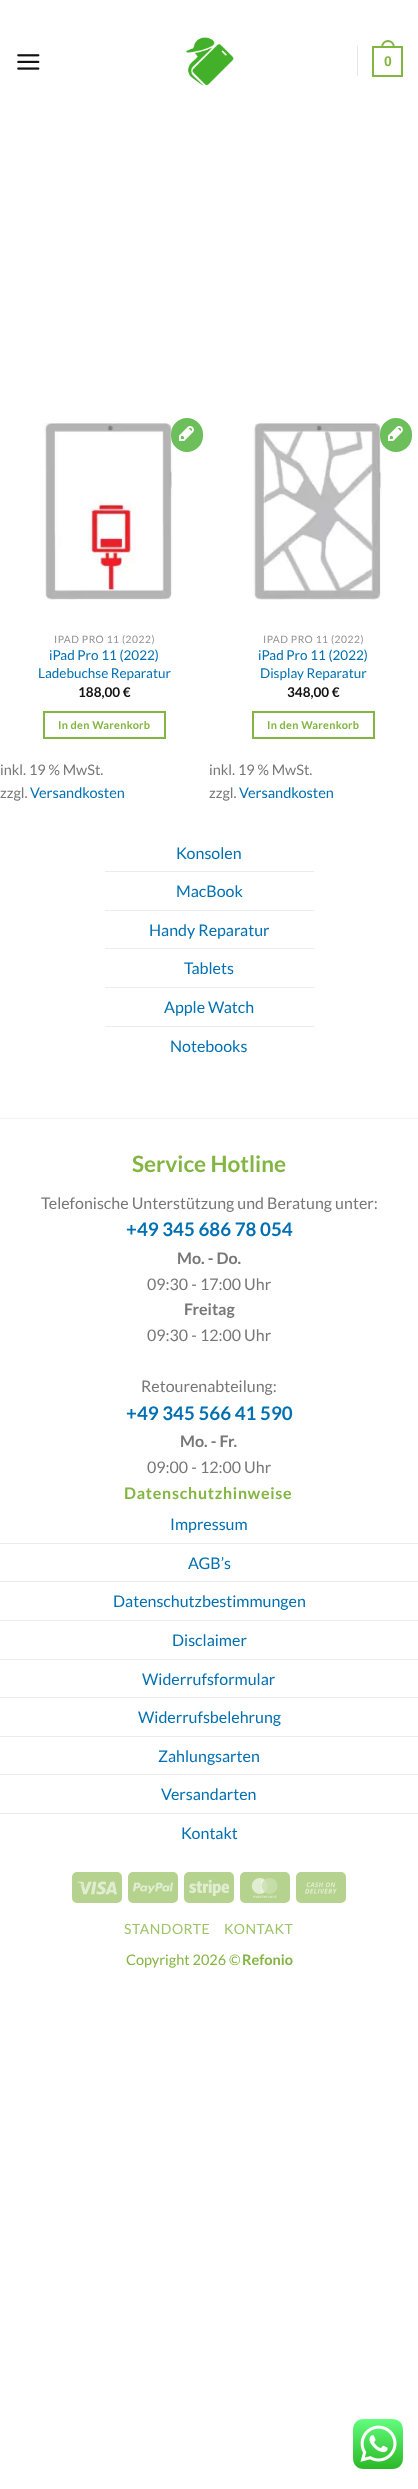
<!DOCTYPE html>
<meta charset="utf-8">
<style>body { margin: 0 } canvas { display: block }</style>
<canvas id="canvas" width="418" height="2489"></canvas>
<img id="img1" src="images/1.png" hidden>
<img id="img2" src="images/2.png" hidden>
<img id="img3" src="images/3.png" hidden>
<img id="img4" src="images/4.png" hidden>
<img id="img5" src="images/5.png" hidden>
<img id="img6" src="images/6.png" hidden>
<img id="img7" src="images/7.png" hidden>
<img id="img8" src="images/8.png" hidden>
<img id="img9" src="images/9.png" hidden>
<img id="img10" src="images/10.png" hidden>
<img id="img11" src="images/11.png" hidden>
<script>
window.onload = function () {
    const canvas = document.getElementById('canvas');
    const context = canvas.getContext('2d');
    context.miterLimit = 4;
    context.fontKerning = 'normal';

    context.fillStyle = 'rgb(255, 255, 255)';
    context.fillRect(0, 0, 418, 2489);
    context.drawImage(document.getElementById('img1'), 17, 54, 23, 16);
    context.drawImage(document.getElementById('img2'), 186, 37, 48, 49);
    context.fillStyle = 'rgb(230, 230, 230)';
    context.fillRect(357, 46, 1, 30);
    context.strokeStyle = 'rgb(131, 181, 66)';
    context.lineWidth = 2;
    context.strokeRect(373, 47, 29, 29);
    context.fillStyle = 'rgb(131, 181, 66)';
    context.beginPath();
    context.moveTo(388, 40);
    context.bezierCurveTo(392.5, 40, 395, 44, 395, 48);
    context.lineTo(381, 48);
    context.bezierCurveTo(381, 44, 383.5, 40, 388, 40);
    context.closePath();
    context.moveTo(388, 42);
    context.bezierCurveTo(391.5, 42, 393, 45, 393, 48);
    context.lineTo(383, 48);
    context.bezierCurveTo(383, 45, 384.5, 42, 388, 42);
    context.closePath();
    context.fill('evenodd');
    context.drawImage(document.getElementById('img3'), 44, 423, 129, 177);
    context.fillStyle = 'rgb(108, 191, 90)';
    context.beginPath();
    context.roundRect(172, 419, 30, 32, 15);
    context.fill();
    context.strokeStyle = 'rgb(108, 191, 90)';
    context.stroke();
    context.drawImage(document.getElementById('img4'), 179, 426, 15, 15);
    context.strokeStyle = 'rgb(131, 181, 66)';
    context.strokeRect(44, 712, 121, 26);
    context.drawImage(document.getElementById('img5'), 253, 423, 129, 177);
    context.beginPath();
    context.roundRect(381, 419, 30, 32, 15);
    context.fill();
    context.strokeStyle = 'rgb(108, 191, 90)';
    context.stroke();
    context.drawImage(document.getElementById('img4'), 388, 426, 15, 15);
    context.strokeStyle = 'rgb(131, 181, 66)';
    context.strokeRect(253, 712, 121, 26);
    context.fillStyle = 'rgb(236, 236, 236)';
    context.fillRect(105, 871, 209, 1);
    context.fillRect(105, 910, 209, 1);
    context.fillRect(105, 948, 209, 1);
    context.fillRect(105, 987, 209, 1);
    context.fillRect(105, 1026, 209, 1);
    context.fillStyle = 'rgb(242, 242, 242)';
    context.fillRect(0, 1118, 418, 1);
    context.fillStyle = 'rgb(236, 236, 236)';
    context.fillRect(0, 1543, 418, 1);
    context.fillRect(0, 1581, 418, 1);
    context.fillRect(0, 1620, 418, 1);
    context.fillRect(0, 1659, 418, 1);
    context.fillRect(0, 1697, 418, 1);
    context.fillRect(0, 1736, 418, 1);
    context.fillRect(0, 1774, 418, 1);
    context.fillRect(0, 1813, 418, 1);
    context.fillStyle = 'rgb(181, 211, 142)';
    context.beginPath();
    context.roundRect(72, 1872, 50, 31, 5);
    context.fill();
    context.drawImage(document.getElementById('img6'), 77, 1881, 40, 14);
    context.beginPath();
    context.roundRect(128, 1872, 50, 31, 5);
    context.fill();
    context.drawImage(document.getElementById('img7'), 133, 1882, 40, 12);
    context.beginPath();
    context.roundRect(184, 1872, 50, 31, 5);
    context.fill();
    context.drawImage(document.getElementById('img8'), 189, 1879, 40, 18);
    context.beginPath();
    context.roundRect(240, 1872, 50, 31, 5);
    context.fill();
    context.drawImage(document.getElementById('img9'), 251, 1878, 27, 20);
    context.beginPath();
    context.roundRect(296, 1872, 50, 31, 5);
    context.fill();
    context.drawImage(document.getElementById('img10'), 305, 1882, 32, 12);
    context.drawImage(document.getElementById('img11'), 353, 2419, 50, 50);
    context.font = 'bold 14px Liberation Sans';
    context.fillStyle = 'rgb(131, 181, 66)';
    context.fillText('0', 384, 66);
    context.letterSpacing = '0.5px';
    context.font = '10.25px Lato';
    context.fillStyle = 'rgb(146, 146, 146)';
    context.fillText('IPAD PRO 11 (2022)', 54, 643);
    context.letterSpacing = '0px';
    context.font = '13.5px Lato';
    context.fillStyle = 'rgb(1, 112, 178)';
    context.fillText('iPad Pro 11 (2022)', 49, 660);
    context.fillText('Ladebuchse Reparatur', 38, 678);
    context.font = 'bold 13.5px Lato';
    context.fillStyle = 'rgb(17, 17, 17)';
    context.fillText('188,00 €', 78, 697);
    context.letterSpacing = '0.3px';
    context.font = 'bold 10.9px Lato';
    context.fillStyle = 'rgb(131, 181, 66)';
    context.fillText('In den Warenkorb', 58, 729);
    context.letterSpacing = '0px';
    context.font = '14.5px Lato';
    context.fillStyle = 'rgb(119, 119, 119)';
    context.fillText('inkl. 19 % MwSt.', 0, 775);
    context.fillText('zzgl.', 0, 798);
    context.fillStyle = 'rgb(1, 112, 178)';
    context.fillText('Versandkosten', 30, 798);
    context.letterSpacing = '0.5px';
    context.font = '10.25px Lato';
    context.fillStyle = 'rgb(146, 146, 146)';
    context.fillText('IPAD PRO 11 (2022)', 263, 643);
    context.letterSpacing = '0px';
    context.font = '13.5px Lato';
    context.fillStyle = 'rgb(1, 112, 178)';
    context.fillText('iPad Pro 11 (2022)', 258, 660);
    context.fillText('Display Reparatur', 260, 678);
    context.font = 'bold 13.5px Lato';
    context.fillStyle = 'rgb(17, 17, 17)';
    context.fillText('348,00 €', 287, 697);
    context.letterSpacing = '0.3px';
    context.font = 'bold 10.9px Lato';
    context.fillStyle = 'rgb(131, 181, 66)';
    context.fillText('In den Warenkorb', 267, 729);
    context.letterSpacing = '0px';
    context.font = '14.5px Lato';
    context.fillStyle = 'rgb(119, 119, 119)';
    context.fillText('inkl. 19 % MwSt.', 209, 775);
    context.fillText('zzgl.', 209, 798);
    context.fillStyle = 'rgb(1, 112, 178)';
    context.fillText('Versandkosten', 239, 798);
    context.font = '16px Lato';
    context.fillText('Konsolen', 176, 859);
    context.fillText('MacBook', 176, 897);
    context.fillText('Handy Reparatur', 149, 936);
    context.fillText('Tablets', 184, 974);
    context.fillText('Apple Watch', 164, 1013);
    context.fillText('Notebooks', 170, 1052);
    context.font = 'bold 22.5px Lato';
    context.fillStyle = 'rgb(131, 181, 66)';
    context.fillText('Service Hotline', 132, 1172);
    context.font = '16px Lato';
    context.fillStyle = 'rgb(119, 119, 119)';
    context.fillText('Telefonische Unterstützung und Beratung unter:', 41, 1209);
    context.font = 'bold 18.75px Lato';
    context.fillStyle = 'rgb(1, 112, 178)';
    context.fillText('+49 345 686 78 054', 126, 1236);
    context.font = 'bold 16px Lato';
    context.fillStyle = 'rgb(119, 119, 119)';
    context.fillText('Mo. - Do.', 177, 1264);
    context.font = '16px Lato';
    context.fillText('09:30 - 17:00 Uhr', 147, 1290);
    context.font = 'bold 16px Lato';
    context.fillText('Freitag', 184, 1315);
    context.font = '16px Lato';
    context.fillText('09:30 - 12:00 Uhr', 147, 1341);
    context.fillText('Retourenabteilung:', 141, 1392);
    context.font = 'bold 18.75px Lato';
    context.fillStyle = 'rgb(1, 112, 178)';
    context.fillText('+49 345 566 41 590', 126, 1420);
    context.font = 'bold 16px Lato';
    context.fillStyle = 'rgb(119, 119, 119)';
    context.fillText('Mo. - Fr.', 180, 1447);
    context.font = '16px Lato';
    context.fillText('09:00 - 12:00 Uhr', 147, 1473);
    context.letterSpacing = '0.75px';
    context.font = 'bold 16px Lato';
    context.fillStyle = 'rgb(131, 181, 66)';
    context.fillText('Datenschutzhinweise', 124, 1499);
    context.letterSpacing = '0px';
    context.font = '16px Lato';
    context.fillStyle = 'rgb(1, 112, 178)';
    context.fillText('Impressum', 170, 1530);
    context.fillText('AGB’s', 188, 1569);
    context.fillText('Datenschutzbestimmungen', 113, 1607);
    context.fillText('Disclaimer', 172, 1646);
    context.fillText('Widerrufsformular', 142, 1685);
    context.fillText('Widerrufsbelehrung', 138, 1723);
    context.fillText('Zahlungsarten', 158, 1762);
    context.fillText('Versandarten', 161, 1800);
    context.fillText('Kontakt', 181, 1839);
    context.letterSpacing = '0.5px';
    context.font = '14px Lato';
    context.fillStyle = 'rgb(156, 196, 104)';
    context.fillText('STANDORTE', 124, 1934);
    context.fillText('KONTAKT', 224, 1934);
    context.letterSpacing = '0px';
    context.font = '14.5px Lato';
    context.fillStyle = 'rgb(131, 181, 66)';
    context.fillText('Copyright 2026 ©', 126, 1965);
    context.font = 'bold 14.5px Lato';
    context.fillText('Refonio', 242, 1965);
};
</script>
